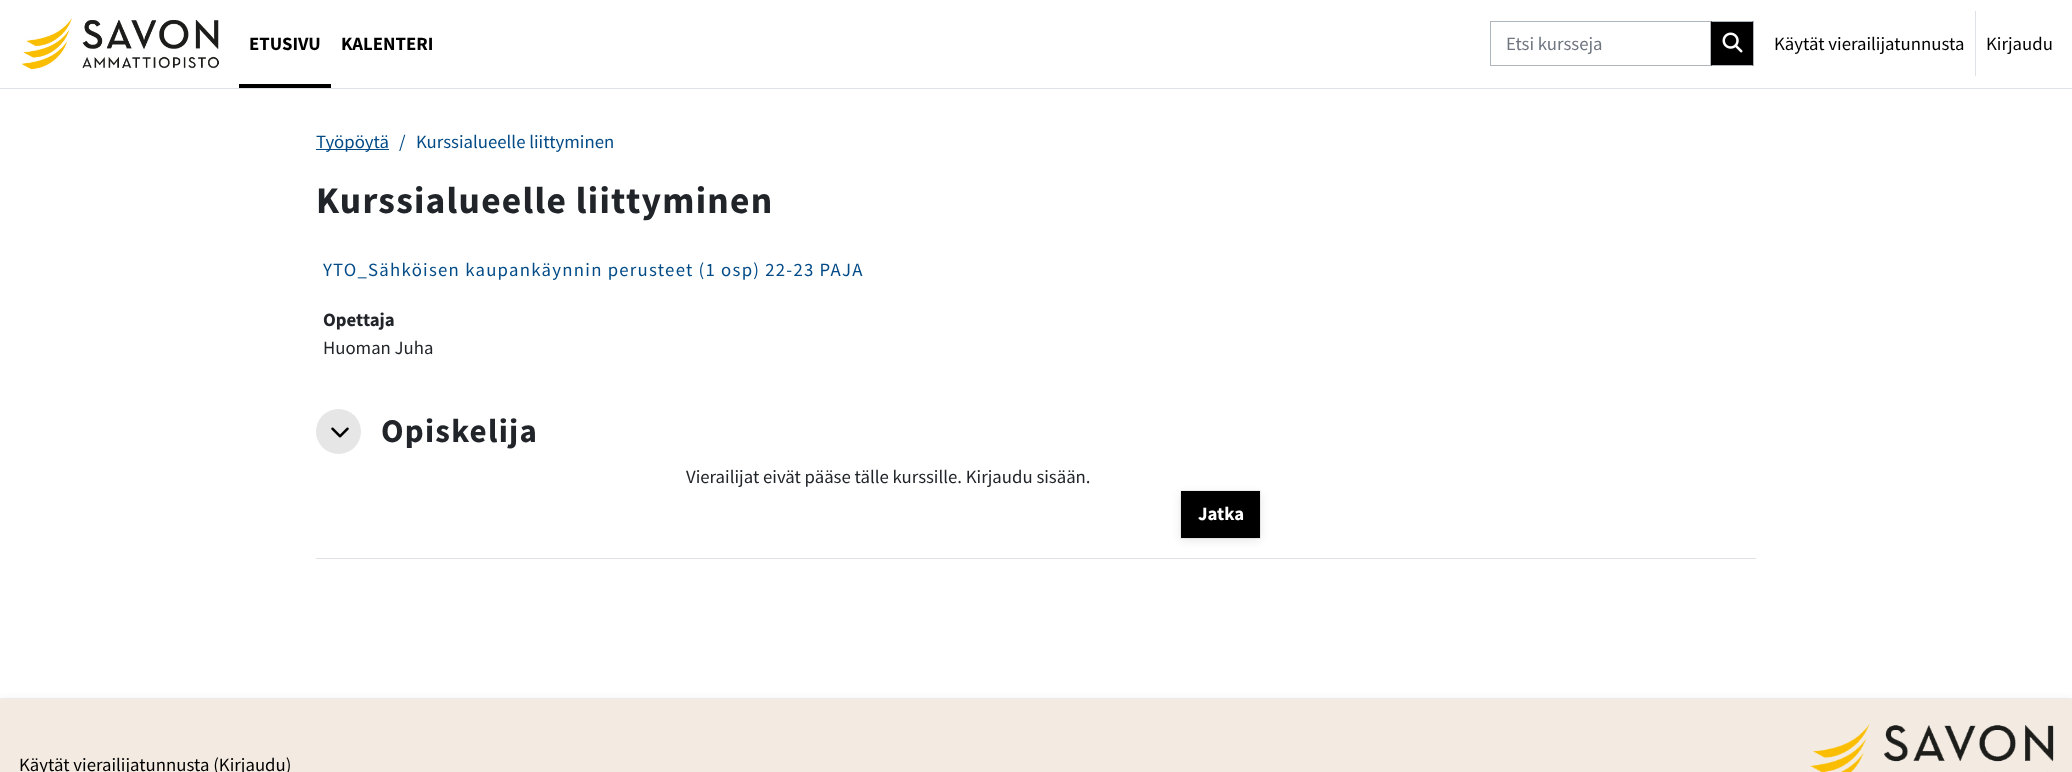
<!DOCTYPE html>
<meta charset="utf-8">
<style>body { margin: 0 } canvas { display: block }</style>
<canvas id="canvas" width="2072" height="772"></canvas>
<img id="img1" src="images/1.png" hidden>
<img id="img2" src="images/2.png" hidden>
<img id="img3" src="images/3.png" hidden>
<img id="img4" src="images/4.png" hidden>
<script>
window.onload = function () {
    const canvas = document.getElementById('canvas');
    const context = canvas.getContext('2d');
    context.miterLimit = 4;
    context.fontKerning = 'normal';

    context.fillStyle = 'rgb(255, 255, 255)';
    context.fillRect(0, 0, 2072, 772);
    context.fillStyle = 'rgb(222, 226, 230)';
    context.fillRect(0, 88, 2072, 1);
    context.drawImage(document.getElementById('img1'), 21, 18, 198, 51);
    context.fillStyle = 'rgb(0, 0, 0)';
    context.fillRect(239, 84, 92, 4);
    context.strokeStyle = 'rgb(173, 181, 189)';
    context.strokeRect(1490.5, 21.5, 220, 44);
    context.fillRect(1711, 21, 42, 45);
    context.fillStyle = 'rgb(173, 181, 189)';
    context.beginPath();
    context.moveTo(1711, 21);
    context.lineTo(1754, 21);
    context.lineTo(1752, 22);
    context.lineTo(1712, 22);
    context.closePath();
    context.fill();
    context.fillRect(1753, 21, 1, 45);
    context.beginPath();
    context.moveTo(1754, 66);
    context.lineTo(1711, 66);
    context.lineTo(1712, 65);
    context.lineTo(1752, 65);
    context.closePath();
    context.fill();
    context.drawImage(document.getElementById('img2'), 1722, 32, 21, 21);
    context.fillStyle = 'rgb(222, 226, 230)';
    context.fillRect(1975, 11, 1, 65);
    context.fillStyle = 'rgb(2, 75, 135)';
    context.fillRect(316, 149, 73, 1);
    context.fillStyle = 'rgb(222, 226, 230)';
    context.fillRect(316, 558, 1440, 1);
    context.fillStyle = 'rgb(230, 230, 230)';
    context.beginPath();
    context.arc(338.5, 431.5, 22.5, 0, 2 * Math.PI);
    context.fill();
    context.drawImage(document.getElementById('img3'), 331, 427, 18, 11);
    context.fillStyle = 'rgba(0, 0, 0, 0.1)';
    context.filter = 'blur(5px)';
    context.beginPath();
    context.rect(1181, 494, 79, 46);
    context.fill();
    context.filter = 'none';
    context.strokeStyle = 'rgba(0, 0, 0, 0.05)';
    context.strokeRect(1180.5, 490.5, 80, 48);
    context.fillStyle = 'rgb(0, 0, 0)';
    context.fillRect(1181, 491, 79, 47);
    context.fillStyle = 'rgba(0, 0, 0, 0.1)';
    context.filter = 'blur(5px)';
    context.beginPath();
    context.rect(0, 701, 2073, 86);
    context.fill();
    context.filter = 'none';
    context.strokeRect(-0.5, 698.5, 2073, 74);
    context.fillStyle = 'rgb(243, 235, 226)';
    context.fillRect(0, 699, 2072, 73);
    context.drawImage(document.getElementById('img4'), 1810, 723, 244, 49);
    context.font = 'bold 18.75px Source Sans Pro';
    context.fillStyle = 'rgb(0, 0, 0)';
    context.fillText('ETUSIVU', 249, 50);
    context.fillText('KALENTERI', 341, 50);
    context.font = '18.75px Source Sans Pro';
    context.fillStyle = 'rgb(111, 118, 128)';
    context.fillText('Etsi kursseja', 1506, 50);
    context.fillStyle = 'rgb(0, 0, 0)';
    context.fillText('Käytät vierailijatunnusta', 1774, 50);
    context.fillText('Kirjaudu', 1986, 50);
    context.fillStyle = 'rgb(2, 75, 135)';
    context.fillText('Työpöytä', 316, 148);
    context.fillText('/', 399, 148);
    context.fillText('Kurssialueelle liittyminen', 416, 148);
    context.letterSpacing = '1.25px';
    context.font = 'bold 37.5px Source Sans Pro';
    context.fillStyle = 'rgb(33, 37, 41)';
    context.fillText('Kurssialueelle liittyminen', 316, 213);
    context.font = '18.75px Source Sans Pro';
    context.fillStyle = 'rgb(2, 75, 135)';
    context.fillText('YTO_Sähköisen kaupankäynnin perusteet (1 osp) 22-23 PAJA', 323, 276);
    context.letterSpacing = '0px';
    context.font = 'bold 18.75px Source Sans Pro';
    context.fillStyle = 'rgb(33, 37, 41)';
    context.fillText('Opettaja', 323, 326);
    context.font = '18.75px Source Sans Pro';
    context.fillText('Huoman Juha', 323, 354);
    context.letterSpacing = '1.25px';
    context.font = 'bold 33px Source Sans Pro';
    context.fillText('Opiskelija', 381, 442);
    context.letterSpacing = '0px';
    context.font = '18.75px Source Sans Pro';
    context.fillText('Vierailijat eivät pääse tälle kurssille. Kirjaudu sisään.', 686, 483);
    context.font = 'bold 18.75px Source Sans Pro';
    context.fillStyle = 'rgb(255, 255, 255)';
    context.fillText('Jatka', 1198, 520);
    context.font = '18.75px Source Sans Pro';
    context.fillStyle = 'rgb(0, 0, 0)';
    context.fillText('Käytät vierailijatunnusta (Kirjaudu)', 19, 771);
};
</script>
